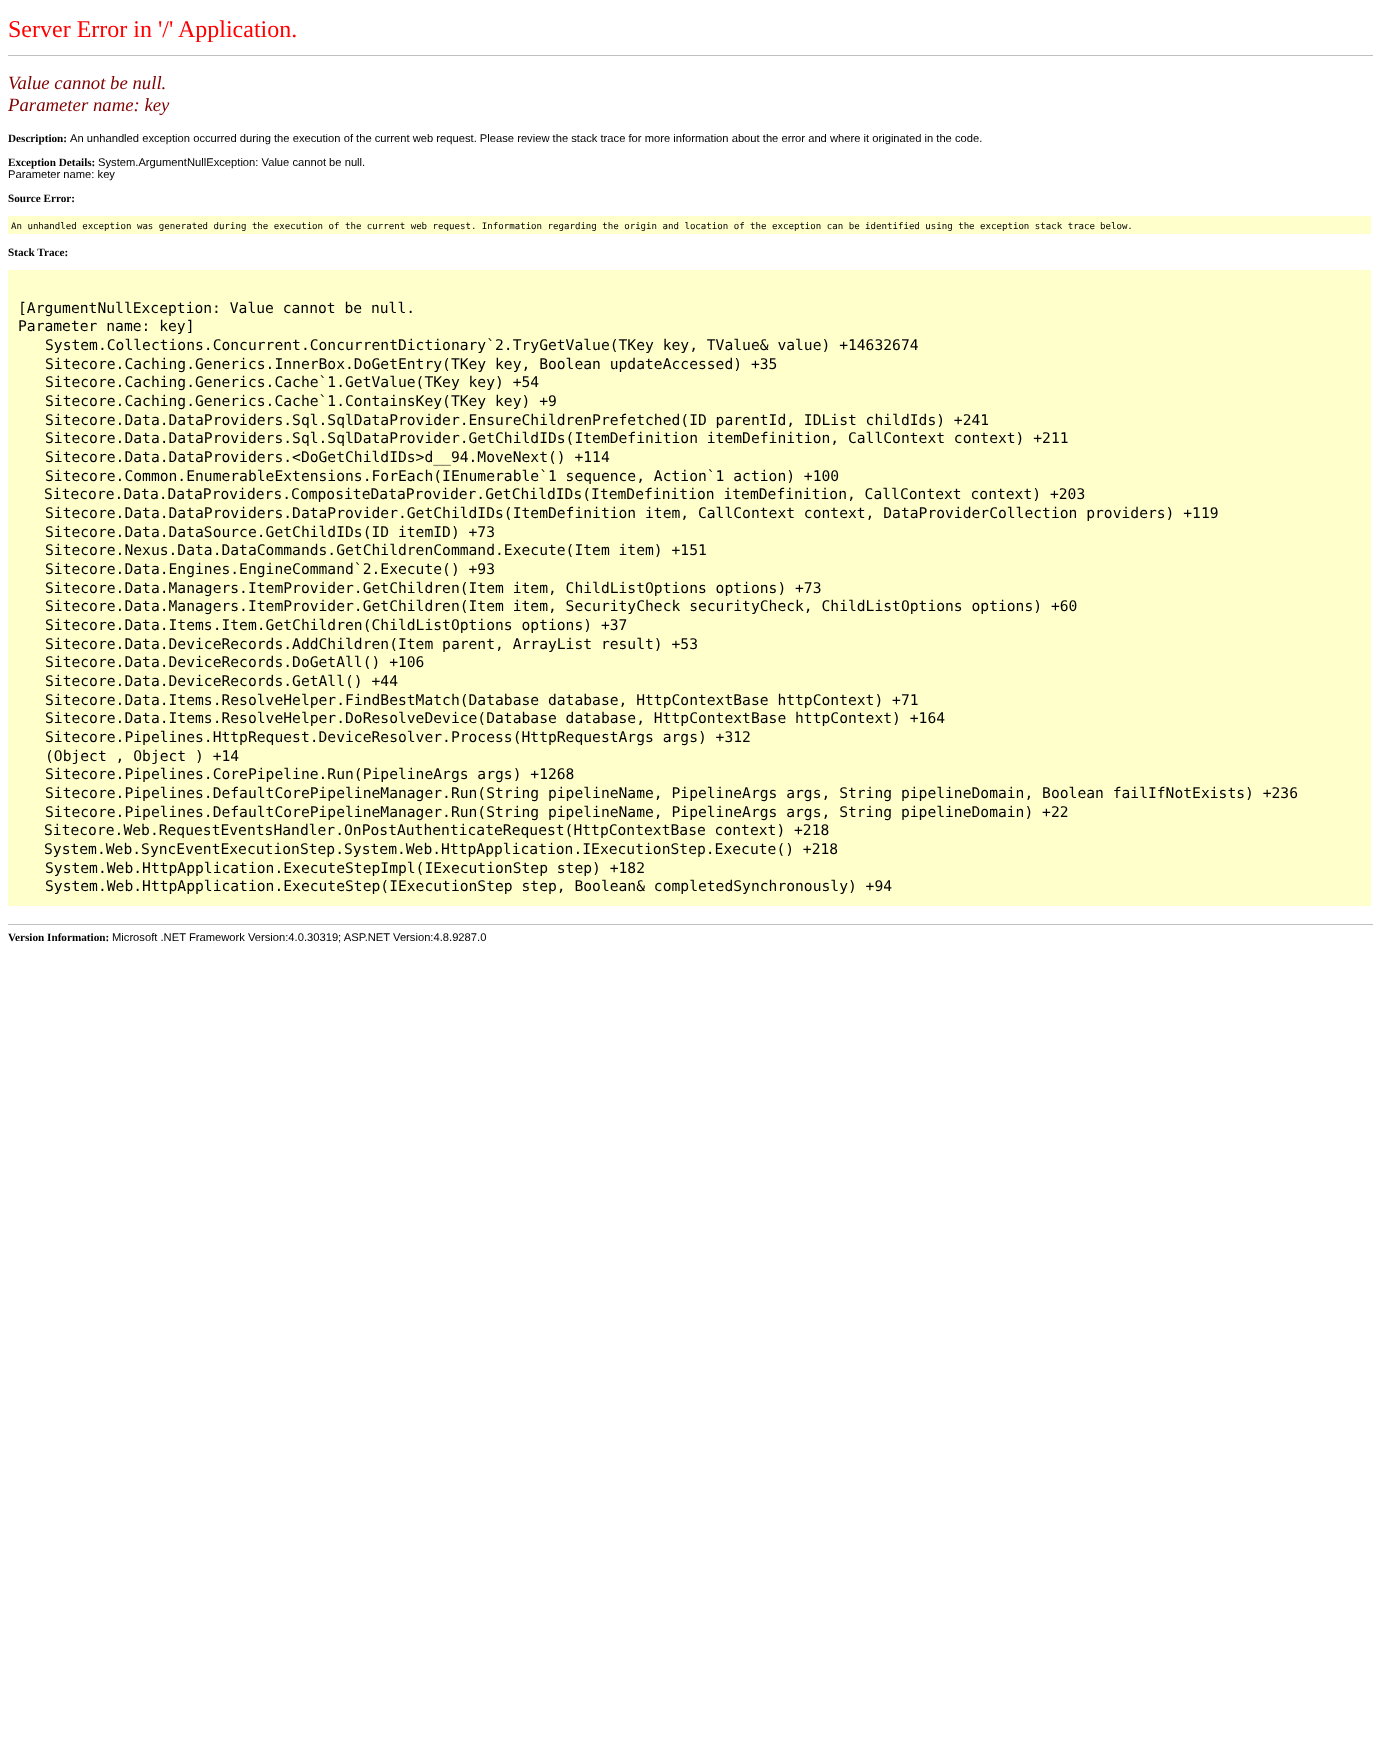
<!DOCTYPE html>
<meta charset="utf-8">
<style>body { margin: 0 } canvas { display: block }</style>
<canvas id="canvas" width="1379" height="1750"></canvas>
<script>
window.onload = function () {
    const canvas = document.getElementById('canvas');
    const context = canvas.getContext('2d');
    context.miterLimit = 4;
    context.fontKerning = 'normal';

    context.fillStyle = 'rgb(255, 255, 255)';
    context.fillRect(0, 0, 1379, 1750);
    context.fillStyle = 'rgb(192, 192, 192)';
    context.fillRect(8, 55, 1365, 1);
    context.fillStyle = 'rgb(255, 255, 204)';
    context.fillRect(8, 216, 1363, 18);
    context.fillRect(8, 270, 1363, 636);
    context.fillStyle = 'rgb(192, 192, 192)';
    context.fillRect(8, 924, 1365, 1);
    context.font = '24px Liberation Serif';
    context.fillStyle = 'rgb(255, 0, 0)';
    context.fillText('Server Error in \'/\' Application.', 8, 37);
    context.font = 'italic 18.75px Liberation Serif';
    context.fillStyle = 'rgb(128, 0, 0)';
    context.fillText('Value cannot be null.', 8, 89);
    context.fillText('Parameter name: key', 8, 111);
    context.font = 'bold 11.2px Liberation Serif';
    context.fillStyle = 'rgb(0, 0, 0)';
    context.fillText('Description:', 8, 142);
    context.font = '11.2px Liberation Sans';
    context.fillText('An unhandled exception occurred during the execution of the current web request. Please review the stack trace for more information about the error and where it originated in the code.', 70, 142);
    context.font = 'bold 11.2px Liberation Serif';
    context.fillText('Exception Details:', 8, 166);
    context.font = '11.2px Liberation Sans';
    context.fillText('System.ArgumentNullException: Value cannot be null.', 98, 166);
    context.fillText('Parameter name: key', 8, 178);
    context.font = 'bold 11.2px Liberation Serif';
    context.fillText('Source Error:', 8, 202);
    context.font = '9.1px DejaVu Sans Mono';
    context.fillText('An unhandled exception was generated during the execution of the current web request. Information regarding the origin and location of the exception can be identified using the exception stack trace', 11, 229);
    context.fillText('below.', 1100, 229);
    context.font = 'bold 11.2px Liberation Serif';
    context.fillText('Stack Trace:', 8, 256);
    context.font = '14.67px DejaVu Sans Mono';
    context.fillText('[ArgumentNullException: Value cannot be null.', 18, 313);
    context.fillText('Parameter name: key]', 18, 331);
    context.fillText('System.Collections.Concurrent.ConcurrentDictionary`2.TryGetValue(TKey key, TValue& value) +14632674', 45, 350);
    context.fillText('Sitecore.Caching.Generics.InnerBox.DoGetEntry(TKey key, Boolean updateAccessed) +35', 45, 369);
    context.fillText('Sitecore.Caching.Generics.Cache`1.GetValue(TKey key) +54', 45, 387);
    context.fillText('Sitecore.Caching.Generics.Cache`1.ContainsKey(TKey key) +9', 45, 406);
    context.fillText('Sitecore.Data.DataProviders.Sql.SqlDataProvider.EnsureChildrenPrefetched(ID parentId, IDList childIds) +241', 45, 425);
    context.fillText('Sitecore.Data.DataProviders.Sql.SqlDataProvider.GetChildIDs(ItemDefinition itemDefinition, CallContext context) +211', 45, 443);
    context.fillText('Sitecore.Data.DataProviders.<DoGetChildIDs>d__94.MoveNext() +114', 45, 462);
    context.fillText('Sitecore.Common.EnumerableExtensions.ForEach(IEnumerable`1 sequence, Action`1 action) +100', 45, 481);
    context.fillText('Sitecore.Data.DataProviders.CompositeDataProvider.GetChildIDs(ItemDefinition itemDefinition, CallContext context) +203', 44, 499);
    context.fillText('Sitecore.Data.DataProviders.DataProvider.GetChildIDs(ItemDefinition item, CallContext context, DataProviderCollection providers) +119', 45, 518);
    context.fillText('Sitecore.Data.DataSource.GetChildIDs(ID itemID) +73', 45, 537);
    context.fillText('Sitecore.Nexus.Data.DataCommands.GetChildrenCommand.Execute(Item item) +151', 45, 555);
    context.fillText('Sitecore.Data.Engines.EngineCommand`2.Execute() +93', 45, 574);
    context.fillText('Sitecore.Data.Managers.ItemProvider.GetChildren(Item item, ChildListOptions options) +73', 45, 593);
    context.fillText('Sitecore.Data.Managers.ItemProvider.GetChildren(Item item, SecurityCheck securityCheck, ChildListOptions options) +60', 45, 611);
    context.fillText('Sitecore.Data.Items.Item.GetChildren(ChildListOptions options) +37', 45, 630);
    context.fillText('Sitecore.Data.DeviceRecords.AddChildren(Item parent, ArrayList result) +53', 45, 649);
    context.fillText('Sitecore.Data.DeviceRecords.DoGetAll() +106', 45, 667);
    context.fillText('Sitecore.Data.DeviceRecords.GetAll() +44', 45, 686);
    context.fillText('Sitecore.Data.Items.ResolveHelper.FindBestMatch(Database database, HttpContextBase httpContext) +71', 45, 705);
    context.fillText('Sitecore.Data.Items.ResolveHelper.DoResolveDevice(Database database, HttpContextBase httpContext) +164', 45, 723);
    context.fillText('Sitecore.Pipelines.HttpRequest.DeviceResolver.Process(HttpRequestArgs args) +312', 45, 742);
    context.fillText('(Object , Object ) +14', 45, 761);
    context.fillText('Sitecore.Pipelines.CorePipeline.Run(PipelineArgs args) +1268', 45, 779);
    context.fillText('Sitecore.Pipelines.DefaultCorePipelineManager.Run(String pipelineName, PipelineArgs args, String pipelineDomain, Boolean failIfNotExists) +236', 45, 798);
    context.fillText('Sitecore.Pipelines.DefaultCorePipelineManager.Run(String pipelineName, PipelineArgs args, String pipelineDomain) +22', 45, 817);
    context.fillText('Sitecore.Web.RequestEventsHandler.OnPostAuthenticateRequest(HttpContextBase context) +218', 44, 835);
    context.fillText('System.Web.SyncEventExecutionStep.System.Web.HttpApplication.IExecutionStep.Execute() +218', 44, 854);
    context.fillText('System.Web.HttpApplication.ExecuteStepImpl(IExecutionStep step) +182', 45, 873);
    context.fillText('System.Web.HttpApplication.ExecuteStep(IExecutionStep step, Boolean& completedSynchronously) +94', 45, 891);
    context.font = 'bold 11.2px Liberation Serif';
    context.fillText('Version Information:', 8, 941);
    context.font = '11.2px Liberation Sans';
    context.fillText('Microsoft .NET Framework Version:4.0.30319; ASP.NET Version:4.8.9287.0', 112, 941);
};
</script>
